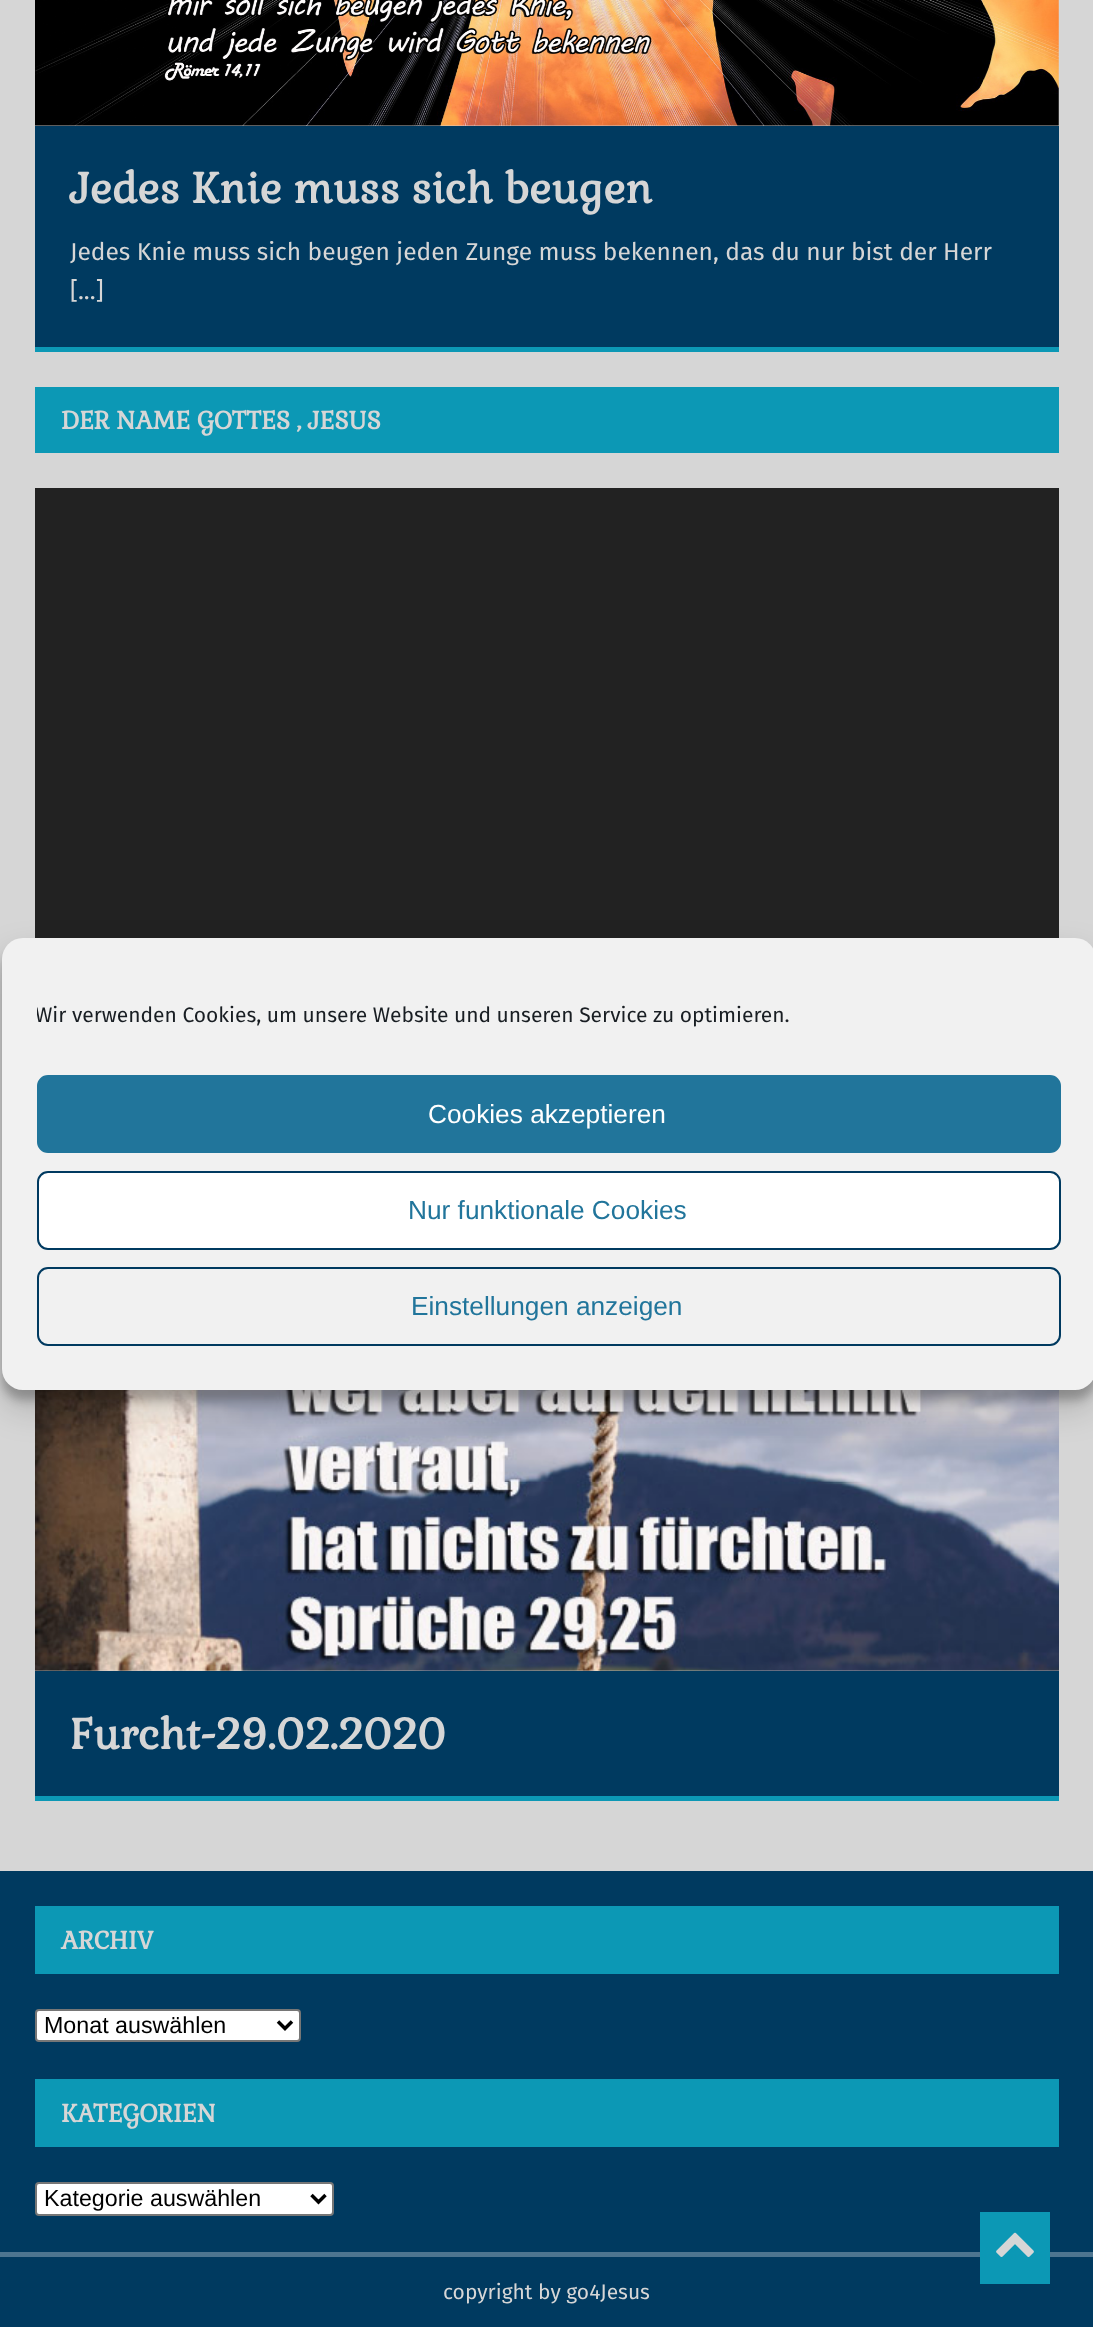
<!DOCTYPE html>
<meta charset="utf-8">
<style>body { margin: 0 } canvas { display: block }</style>
<canvas id="canvas" width="1093" height="2327"></canvas>
<img id="img1" src="images/1.png" hidden>
<img id="img2" src="images/2.png" hidden>
<img id="img3" src="images/3.png" hidden>
<script>
window.onload = function () {
    const canvas = document.getElementById('canvas');
    const context = canvas.getContext('2d');
    context.miterLimit = 4;
    context.fontKerning = 'normal';

    context.fillStyle = 'rgb(214, 214, 214)';
    context.fillRect(0, 0, 1093, 2327);
    context.drawImage(document.getElementById('img1'), 35, 0, 1024, 126);
    context.fillStyle = 'rgb(0, 58, 96)';
    context.fillRect(35, 126, 1024, 221);
    context.fillStyle = 'rgb(12, 152, 181)';
    context.fillRect(35, 347, 1024, 5);
    context.fillRect(35, 387, 1024, 66);
    context.fillStyle = 'rgb(34, 34, 34)';
    context.fillRect(35, 488, 1024, 450);
    context.drawImage(document.getElementById('img2'), 35, 1390, 1024, 281);
    context.fillStyle = 'rgb(0, 58, 96)';
    context.fillRect(35, 1671, 1024, 125);
    context.fillStyle = 'rgb(12, 152, 181)';
    context.fillRect(35, 1796, 1024, 5);
    context.fillStyle = 'rgb(0, 58, 96)';
    context.fillRect(0, 1871, 1093, 381);
    context.fillRect(0, 2257, 1093, 70);
    context.fillStyle = 'rgb(77, 117, 144)';
    context.fillRect(0, 2252, 1093, 5);
    context.fillStyle = 'rgb(12, 152, 181)';
    context.fillRect(980, 2212, 70, 72);
    context.drawImage(document.getElementById('img3'), 996, 2232, 38, 25);
    context.fillStyle = 'rgba(0, 0, 0, 0.23)';
    context.filter = 'blur(5px)';
    context.beginPath();
    context.roundRect(2, 949, 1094, 451, 21);
    context.fill();
    context.filter = 'none';
    context.fillStyle = 'rgba(0, 0, 0, 0.19)';
    context.filter = 'blur(17.5px)';
    context.beginPath();
    context.roundRect(2, 956, 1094, 451, 21);
    context.fill();
    context.filter = 'none';
    context.fillStyle = 'rgb(241, 241, 241)';
    context.beginPath();
    context.roundRect(2, 938, 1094, 452, 21);
    context.fill();
    context.fillStyle = 'rgb(33, 117, 155)';
    context.beginPath();
    context.roundRect(38, 1076, 1022, 76, 10);
    context.fill();
    context.strokeStyle = 'rgb(33, 117, 155)';
    context.lineWidth = 2;
    context.stroke();
    context.fillStyle = 'rgb(255, 255, 255)';
    context.beginPath();
    context.roundRect(38, 1172, 1022, 77, 10);
    context.fill();
    context.strokeStyle = 'rgb(0, 58, 96)';
    context.stroke();
    context.beginPath();
    context.roundRect(38, 1268, 1022, 77, 10);
    context.stroke();
    context.fillStyle = 'rgb(12, 152, 181)';
    context.fillRect(35, 1906, 1024, 68);
    context.fillStyle = 'rgb(255, 255, 255)';
    context.beginPath();
    context.roundRect(36, 2010, 264, 31, 3);
    context.fill();
    context.strokeStyle = 'rgb(118, 118, 118)';
    context.stroke();
    context.beginPath();
    context.moveTo(278, 2021.5);
    context.lineTo(285, 2028.5);
    context.lineTo(292, 2021.5);
    context.strokeStyle = 'rgb(0, 0, 0)';
    context.lineWidth = 3.5;
    context.stroke();
    context.fillStyle = 'rgb(12, 152, 181)';
    context.fillRect(35, 2079, 1024, 68);
    context.fillStyle = 'rgb(255, 255, 255)';
    context.beginPath();
    context.roundRect(36, 2183, 297, 32, 3);
    context.fill();
    context.strokeStyle = 'rgb(118, 118, 118)';
    context.lineWidth = 2;
    context.stroke();
    context.beginPath();
    context.moveTo(311.5, 2195);
    context.lineTo(318.5, 2202);
    context.lineTo(325.5, 2195);
    context.strokeStyle = 'rgb(0, 0, 0)';
    context.lineWidth = 3.5;
    context.stroke();
    context.font = 'bold 42px Gabriela';
    context.fillStyle = 'rgb(214, 214, 214)';
    context.fillText('Jedes Knie muss sich beugen', 70, 203);
    context.font = '24.5px Fira Sans';
    context.fillText('Jedes Knie muss sich beugen jeden Zunge muss bekennen, das du nur bist der Herr', 70, 260);
    context.fillText('[...]', 70, 299);
    context.font = 'bold 24.5px Gabriela';
    context.fillText('DER NAME GOTTES , JESUS', 61, 429);
    context.font = 'bold 42px Gabriela';
    context.fillText('Furcht-29.02.2020', 70, 1749);
    context.save();
    context.beginPath();
    context.rect(37, 999, 1024, 41);
    context.clip();
    context.font = '21px Fira Sans';
    context.fillStyle = 'rgb(25, 30, 35)';
    context.fillText('Wir verwenden Cookies, um unsere Website und unseren Service zu optimieren.', 35, 1022);
    context.restore();
    context.font = '26.25px Liberation Sans';
    context.fillStyle = 'rgb(255, 255, 255)';
    context.fillText('Cookies akzeptieren', 428, 1123);
    context.fillStyle = 'rgb(33, 117, 155)';
    context.fillText('Nur funktionale Cookies', 408, 1219);
    context.fillText('Einstellungen anzeigen', 411, 1315);
    context.font = 'bold 24.5px Gabriela';
    context.fillStyle = 'rgb(214, 214, 214)';
    context.fillText('ARCHIV', 61, 1949);
    context.font = '23.25px Liberation Sans';
    context.fillStyle = 'rgb(0, 0, 0)';
    context.fillText('Monat auswählen', 44, 2033);
    context.font = 'bold 24.5px Gabriela';
    context.fillStyle = 'rgb(214, 214, 214)';
    context.fillText('KATEGORIEN', 61, 2122);
    context.font = '23.25px Liberation Sans';
    context.fillStyle = 'rgb(0, 0, 0)';
    context.fillText('Kategorie auswählen', 44, 2206);
    context.font = '21px Fira Sans';
    context.fillStyle = 'rgb(214, 214, 214)';
    context.fillText('copyright by go4Jesus', 443, 2299);
};
</script>
